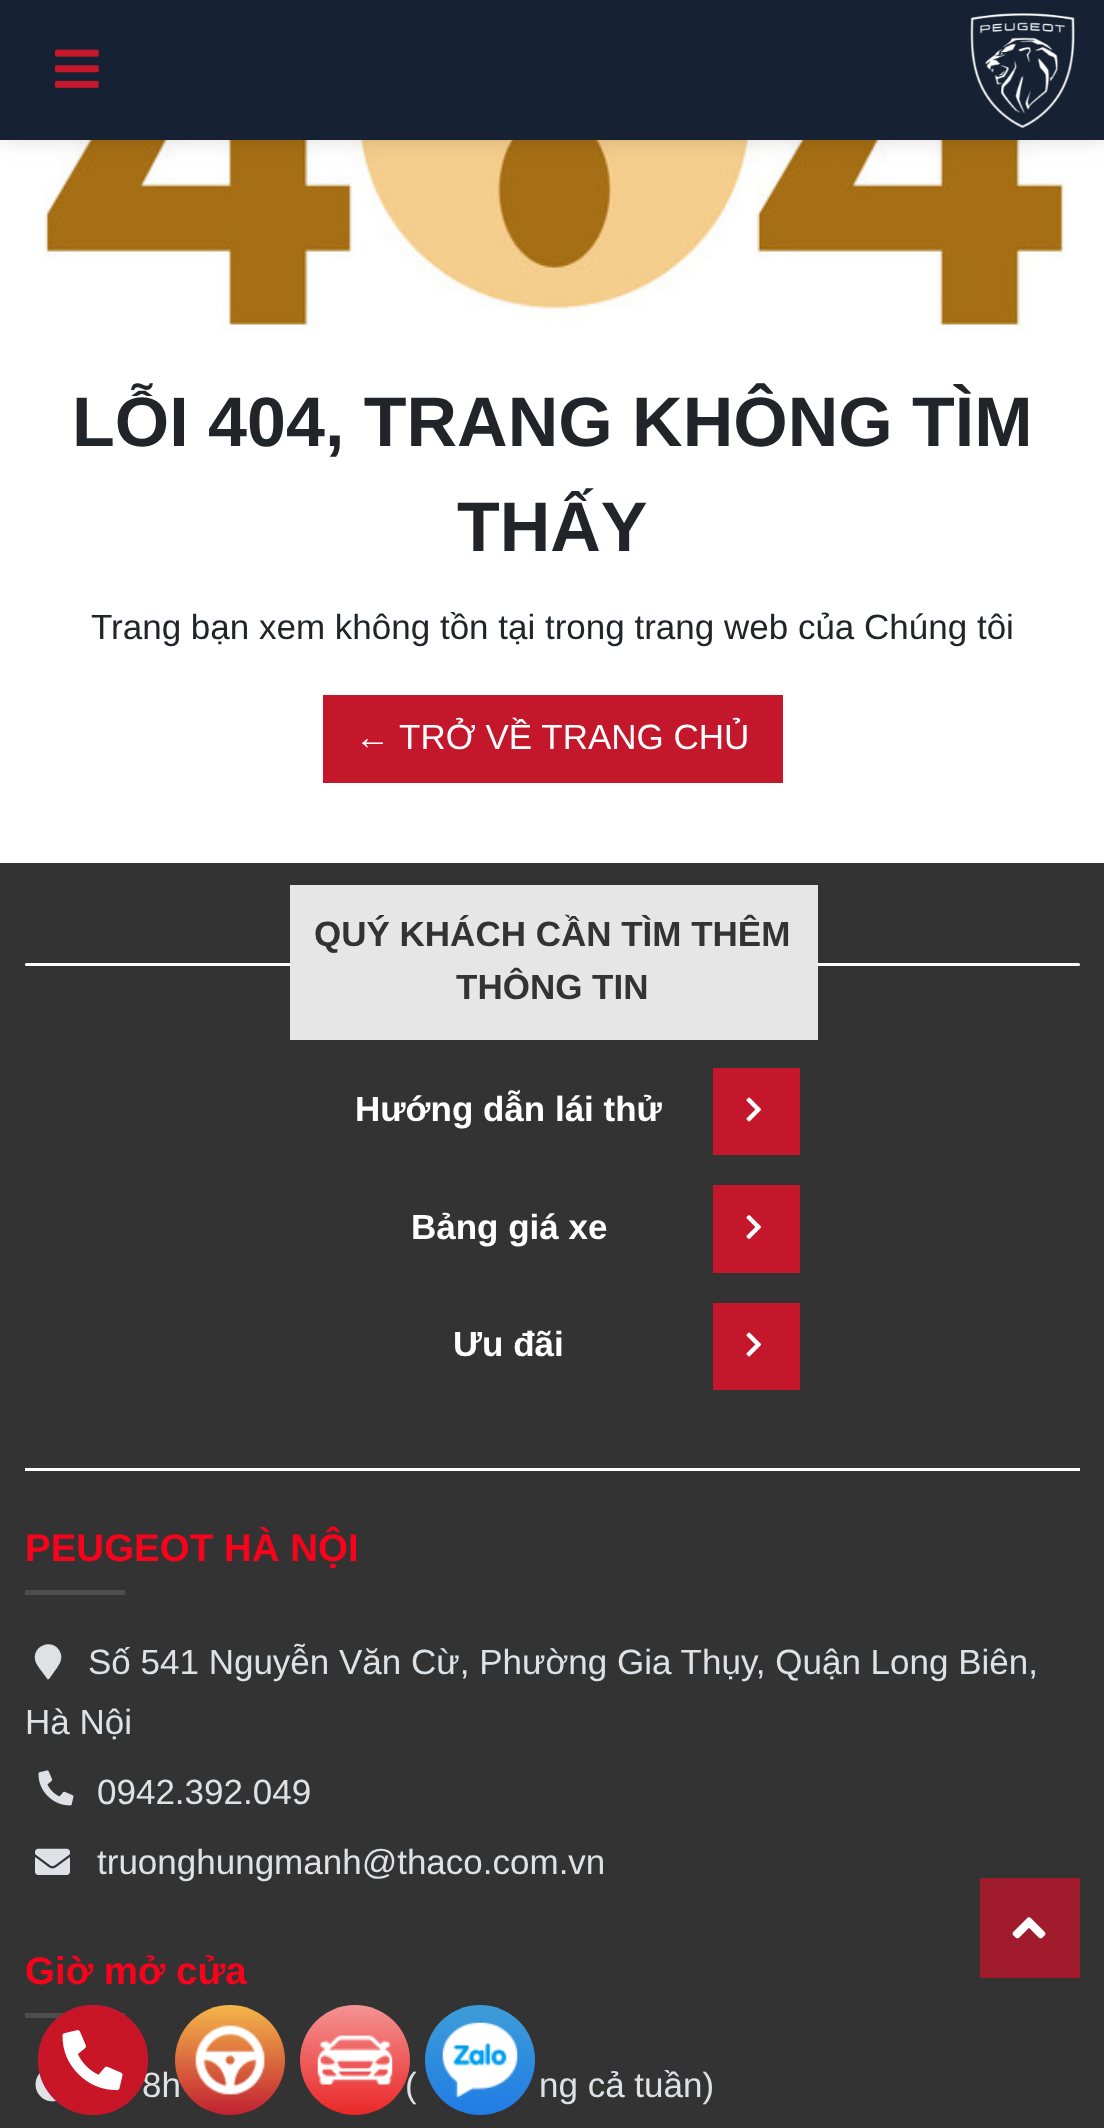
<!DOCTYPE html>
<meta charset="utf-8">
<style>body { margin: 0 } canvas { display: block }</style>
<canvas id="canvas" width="1104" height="2128"></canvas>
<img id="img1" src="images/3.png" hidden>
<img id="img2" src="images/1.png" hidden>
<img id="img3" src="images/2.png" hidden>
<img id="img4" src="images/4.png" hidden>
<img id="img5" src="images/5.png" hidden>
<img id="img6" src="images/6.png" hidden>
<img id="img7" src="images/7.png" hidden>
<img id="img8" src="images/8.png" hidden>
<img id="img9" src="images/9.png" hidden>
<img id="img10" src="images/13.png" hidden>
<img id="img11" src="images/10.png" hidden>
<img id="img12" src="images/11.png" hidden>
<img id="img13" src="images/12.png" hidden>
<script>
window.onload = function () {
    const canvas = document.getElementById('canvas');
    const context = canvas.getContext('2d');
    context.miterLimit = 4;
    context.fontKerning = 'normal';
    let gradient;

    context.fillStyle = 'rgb(255, 255, 255)';
    context.fillRect(0, 0, 1104, 2128);
    context.drawImage(document.getElementById('img1'), 43, 140, 1024, 193);
    context.fillStyle = 'rgba(0, 0, 0, 0.2)';
    context.filter = 'blur(12.5px)';
    context.beginPath();
    context.rect(5, 0, 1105, 125);
    context.fill();
    context.filter = 'none';
    context.fillStyle = 'rgba(0, 0, 0, 0.1)';
    context.filter = 'blur(12.5px)';
    context.beginPath();
    context.rect(0, 0, 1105, 140);
    context.fill();
    context.filter = 'none';
    context.fillStyle = 'rgb(22, 33, 51)';
    context.fillRect(0, 0, 1104, 140);
    context.drawImage(document.getElementById('img2'), 55, 49, 44, 39);
    context.drawImage(document.getElementById('img3'), 970, 13, 105, 116);
    context.fillStyle = 'rgb(196, 23, 44)';
    context.fillRect(323, 695, 460, 88);
    context.fillStyle = 'rgb(51, 51, 51)';
    context.fillRect(0, 863, 1104, 1265);
    context.fillStyle = 'rgb(255, 255, 255)';
    context.fillRect(25, 1468, 1055, 3);
    context.beginPath();
    context.roundRect(25, 963, 1055, 3, 1.5);
    context.fill();
    context.fillStyle = 'rgb(230, 230, 230)';
    context.fillRect(290, 885, 528, 155);
    context.fillStyle = 'rgb(196, 23, 44)';
    context.fillRect(713, 1068, 87, 87);
    context.drawImage(document.getElementById('img4'), 746, 1097, 15, 25);
    context.fillRect(713, 1185, 87, 88);
    context.drawImage(document.getElementById('img5'), 746, 1215, 15, 24);
    context.fillRect(713, 1303, 87, 87);
    context.drawImage(document.getElementById('img4'), 746, 1332, 15, 25);
    context.fillStyle = 'rgb(77, 77, 77)';
    context.fillRect(25, 1590, 100, 5);
    context.fillStyle = 'rgb(222, 226, 230)';
    context.beginPath();
    context.moveTo(47, 1678.5);
    context.lineTo(41, 1670.5);
    context.bezierCurveTo(39, 1667.5, 36, 1664, 35, 1660);
    context.bezierCurveTo(32.5, 1646, 51, 1638.5, 59, 1650);
    context.bezierCurveTo(65, 1659, 58, 1666.5, 53, 1673.5);
    context.lineTo(49, 1679);
    context.bezierCurveTo(48, 1679.5, 47, 1679.5, 47, 1678.5);
    context.closePath();
    context.fill();
    context.drawImage(document.getElementById('img6'), 38, 1770, 36, 36);
    context.drawImage(document.getElementById('img7'), 35, 1848, 35, 27);
    context.fillStyle = 'rgb(77, 77, 77)';
    context.fillRect(25, 2013, 100, 5);
    context.drawImage(document.getElementById('img8'), 35, 2073, 22, 29);
    context.fillStyle = 'rgb(160, 28, 45)';
    context.fillRect(980, 1878, 100, 100);
    context.drawImage(document.getElementById('img9'), 1012, 1917, 34, 22);
    gradient = context.createLinearGradient(480, 2005, 480, 2115);
    gradient.addColorStop(0, 'rgb(61, 157, 215)');
    gradient.addColorStop(1, 'rgb(32, 124, 229)');
    context.fillStyle = gradient;
    context.beginPath();
    context.arc(480, 2060, 55, 0, 2 * Math.PI);
    context.fill();
    context.drawImage(document.getElementById('img10'), 442, 2022, 76, 76);
    context.font = 'bold 70px Liberation Sans';
    context.fillStyle = 'rgb(33, 37, 41)';
    context.fillText('LỖI 404, TRANG KHÔNG TÌM', 72, 446);
    context.fillText('THẤY', 457, 551);
    context.font = '35px Liberation Sans';
    context.fillText('Trang bạn xem không tồn tại trong trang web của Chúng tôi', 91, 639);
    context.fillStyle = 'rgb(255, 255, 255)';
    context.fillText('← TRỞ VỀ TRANG CHỦ', 355, 749);
    context.font = 'bold 35px Liberation Sans';
    context.fillStyle = 'rgb(51, 51, 51)';
    context.fillText('QUÝ KHÁCH CẦN TÌM THÊM', 314, 946);
    context.fillText('THÔNG TIN', 456, 999);
    context.fillStyle = 'rgb(255, 255, 255)';
    context.fillText('Hướng dẫn lái thử', 355, 1121);
    context.fillText('Bảng giá xe', 411, 1239);
    context.fillText('Ưu đãi', 453, 1356);
    context.font = 'bold 38.5px Liberation Sans';
    context.fillStyle = 'rgb(247, 3, 27)';
    context.fillText('PEUGEOT HÀ NỘI', 25, 1561);
    context.font = '35px Liberation Sans';
    context.fillStyle = 'rgb(222, 226, 230)';
    context.fillText('Số 541 Nguyễn Văn Cừ, Phường Gia Thụy, Quận Long Biên,', 88, 1674);
    context.fillText('Hà Nội', 25, 1734);
    context.fillText('0942.392.049', 97, 1804);
    context.fillText('truonghungmanh@thaco.com.vn', 97, 1874);
    context.font = 'bold 38.5px Liberation Sans';
    context.fillStyle = 'rgb(247, 3, 27)';
    context.fillText('Giờ mở cửa', 25, 1984);
    context.font = '35px Liberation Sans';
    context.fillStyle = 'rgb(222, 226, 230)';
    context.fillText('8h', 142, 2097);
    context.fillText('(', 405, 2097);
    context.fillText('ng cả tuần)', 539, 2097);
    context.fillStyle = 'rgb(196, 23, 44)';
    context.beginPath();
    context.arc(93, 2060, 55, 0, 2 * Math.PI);
    context.fill();
    context.fillStyle = 'rgba(221, 21, 21, 0.2)';
    context.beginPath();
    context.arc(93, 2060, 53.5, 0, 2 * Math.PI);
    context.fill();
    context.strokeStyle = 'rgb(196, 23, 44)';
    context.lineWidth = 3;
    context.stroke();
    context.drawImage(document.getElementById('img11'), 62, 2030, 61, 61);
    gradient = context.createLinearGradient(230, 2005, 230, 2115);
    gradient.addColorStop(0, 'rgb(245, 183, 74)');
    gradient.addColorStop(1, 'rgb(193, 32, 50)');
    context.fillStyle = gradient;
    context.beginPath();
    context.arc(230, 2060, 55, 0, 2 * Math.PI);
    context.fill();
    context.drawImage(document.getElementById('img12'), 195, 2025, 70, 70);
    gradient = context.createLinearGradient(355, 2005, 355, 2115);
    gradient.addColorStop(0, 'rgb(244, 147, 147)');
    gradient.addColorStop(1, 'rgb(234, 39, 39)');
    context.fillStyle = gradient;
    context.beginPath();
    context.arc(355, 2060, 55, 0, 2 * Math.PI);
    context.fill();
    context.drawImage(document.getElementById('img13'), 317, 2035, 76, 50);
};
</script>
